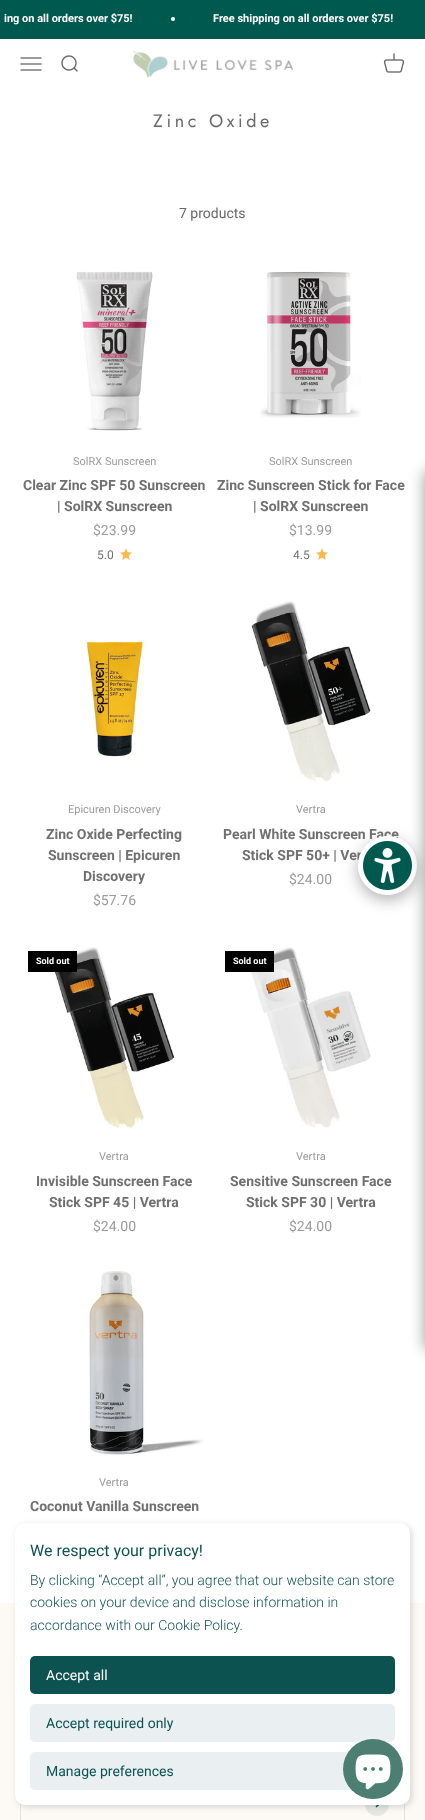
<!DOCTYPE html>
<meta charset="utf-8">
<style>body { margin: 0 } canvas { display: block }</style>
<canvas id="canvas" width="425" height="1820"></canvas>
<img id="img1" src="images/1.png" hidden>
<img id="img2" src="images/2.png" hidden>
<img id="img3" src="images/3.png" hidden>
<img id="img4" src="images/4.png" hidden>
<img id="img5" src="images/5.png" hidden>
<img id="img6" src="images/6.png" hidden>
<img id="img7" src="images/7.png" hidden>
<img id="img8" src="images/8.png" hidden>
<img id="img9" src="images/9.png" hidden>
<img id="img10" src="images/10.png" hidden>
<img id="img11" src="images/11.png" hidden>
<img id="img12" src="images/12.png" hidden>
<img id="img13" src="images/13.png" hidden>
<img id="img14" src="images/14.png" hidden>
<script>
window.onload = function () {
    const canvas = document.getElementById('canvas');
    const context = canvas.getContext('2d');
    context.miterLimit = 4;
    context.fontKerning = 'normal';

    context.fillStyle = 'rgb(255, 255, 255)';
    context.fillRect(0, 0, 425, 1820);
    context.fillStyle = 'rgb(0, 89, 79)';
    context.fillRect(0, 0, 425, 39);
    context.fillStyle = 'rgb(255, 255, 255)';
    context.beginPath();
    context.arc(173, 19, 2, 0, 2 * Math.PI);
    context.fill();
    context.drawImage(document.getElementById('img1'), 20, 57, 22, 14);
    context.drawImage(document.getElementById('img2'), 61, 55, 17, 17);
    context.drawImage(document.getElementById('img3'), 133, 51, 160, 27);
    context.drawImage(document.getElementById('img4'), 383, 53, 22, 20);
    context.drawImage(document.getElementById('img5'), 76, 271, 77, 160);
    context.drawImage(document.getElementById('img6'), 120, 548, 12, 12);
    context.drawImage(document.getElementById('img7'), 260, 271, 101, 147);
    context.drawImage(document.getElementById('img6'), 316, 548, 12, 12);
    context.drawImage(document.getElementById('img8'), 86, 641, 60, 117);
    context.drawImage(document.getElementById('img9'), 251, 601, 120, 182);
    context.drawImage(document.getElementById('img10'), 54, 947, 122, 182);
    context.fillStyle = 'rgb(0, 0, 0)';
    context.fillRect(28, 951, 49, 21);
    context.drawImage(document.getElementById('img11'), 251, 947, 120, 181);
    context.fillRect(225, 951, 49, 21);
    context.drawImage(document.getElementById('img12'), 88, 1271, 116, 185);
    context.fillStyle = 'rgb(253, 249, 245)';
    context.fillRect(0, 1603, 425, 217);
    context.strokeStyle = 'rgb(223, 230, 225)';
    context.strokeRect(20.5, 1778.5, 384, 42);
    context.fillStyle = 'rgb(228, 233, 228)';
    context.beginPath();
    context.arc(377, 1804, 12, 0, 2 * Math.PI);
    context.fill();
    context.beginPath();
    context.moveTo(376, 1807);
    context.lineTo(379, 1804);
    context.lineTo(376, 1801);
    context.strokeStyle = 'rgb(0, 89, 79)';
    context.lineWidth = 1.5;
    context.stroke();
    context.fillStyle = 'rgba(0, 0, 0, 0.15)';
    context.filter = 'blur(3px)';
    context.beginPath();
    context.roundRect(17, 1525, 395, 282, 10);
    context.fill();
    context.filter = 'none';
    context.fillStyle = 'rgb(255, 255, 255)';
    context.beginPath();
    context.roundRect(15, 1523, 395, 282, 10);
    context.fill();
    context.fillStyle = 'rgb(12, 82, 81)';
    context.beginPath();
    context.roundRect(30, 1656, 365, 38, 5);
    context.fill();
    context.fillStyle = 'rgb(234, 239, 242)';
    context.beginPath();
    context.roundRect(30, 1704, 365, 38, 5);
    context.fill();
    context.beginPath();
    context.roundRect(30, 1752, 365, 38, 5);
    context.fill();
    context.fillStyle = 'rgb(77, 126, 114)';
    context.beginPath();
    context.arc(373, 1769, 30, 0, 2 * Math.PI);
    context.fill();
    context.drawImage(document.getElementById('img13'), 355, 1754, 36, 36);
    context.fillStyle = 'rgba(0, 0, 0, 0.3)';
    context.filter = 'blur(7.5px)';
    context.beginPath();
    context.roundRect(358, 841, 59, 59, 29.5);
    context.fill();
    context.filter = 'none';
    context.font = 'bold 11px Roboto';
    context.fillStyle = 'rgb(255, 255, 255)';
    context.fillText('ing on all orders over $75!', 4, 22);
    context.fillText('Free shipping on all orders over $75!', 213, 22);
    context.letterSpacing = '3.6px';
    context.font = '18px Jost';
    context.fillStyle = 'rgb(104, 104, 104)';
    context.fillText('Zinc Oxide', 153, 127);
    context.letterSpacing = '0px';
    context.font = '14px Roboto';
    context.fillText('7 products', 179, 218);
    context.font = '11px Roboto';
    context.fillStyle = 'rgb(155, 155, 155)';
    context.fillText('SolRX Sunscreen', 73, 465);
    context.font = 'bold 14px Roboto';
    context.fillStyle = 'rgb(112, 112, 112)';
    context.fillText('Clear Zinc SPF 50 Sunscreen', 23, 490);
    context.fillText('| SolRX Sunscreen', 57, 511);
    context.font = '14px Roboto';
    context.fillStyle = 'rgb(155, 155, 155)';
    context.fillText('$23.99', 93, 535);
    context.font = '12px Roboto';
    context.fillStyle = 'rgb(112, 112, 112)';
    context.fillText('5.0', 97, 559);
    context.font = '11px Roboto';
    context.fillStyle = 'rgb(155, 155, 155)';
    context.fillText('SolRX Sunscreen', 269, 465);
    context.font = 'bold 14px Roboto';
    context.fillStyle = 'rgb(112, 112, 112)';
    context.fillText('Zinc Sunscreen Stick for Face', 217, 490);
    context.fillText('| SolRX Sunscreen', 253, 511);
    context.font = '14px Roboto';
    context.fillStyle = 'rgb(155, 155, 155)';
    context.fillText('$13.99', 289, 535);
    context.font = '12px Roboto';
    context.fillStyle = 'rgb(112, 112, 112)';
    context.fillText('4.5', 293, 559);
    context.font = '11px Roboto';
    context.fillStyle = 'rgb(155, 155, 155)';
    context.fillText('Epicuren Discovery', 68, 813);
    context.font = 'bold 14px Roboto';
    context.fillStyle = 'rgb(112, 112, 112)';
    context.fillText('Zinc Oxide Perfecting', 46, 839);
    context.fillText('Sunscreen | Epicuren', 48, 860);
    context.fillText('Discovery', 83, 881);
    context.font = '14px Roboto';
    context.fillStyle = 'rgb(155, 155, 155)';
    context.fillText('$57.76', 93, 905);
    context.font = '11px Roboto';
    context.fillText('Vertra', 296, 813);
    context.font = 'bold 14px Roboto';
    context.fillStyle = 'rgb(112, 112, 112)';
    context.fillText('Pearl White Sunscreen Face', 223, 839);
    context.fillText('Stick SPF 50+ | Ver', 242, 860);
    context.font = '14px Roboto';
    context.fillStyle = 'rgb(155, 155, 155)';
    context.fillText('$24.00', 289, 884);
    context.font = 'bold 9px Roboto';
    context.fillStyle = 'rgb(255, 255, 255)';
    context.fillText('Sold out', 36, 964);
    context.font = '11px Roboto';
    context.fillStyle = 'rgb(155, 155, 155)';
    context.fillText('Vertra', 99, 1160);
    context.font = 'bold 14px Roboto';
    context.fillStyle = 'rgb(112, 112, 112)';
    context.fillText('Invisible Sunscreen Face', 36, 1186);
    context.fillText('Stick SPF 45 | Vertra', 49, 1207);
    context.font = '14px Roboto';
    context.fillStyle = 'rgb(155, 155, 155)';
    context.fillText('$24.00', 93, 1231);
    context.font = 'bold 9px Roboto';
    context.fillStyle = 'rgb(255, 255, 255)';
    context.fillText('Sold out', 233, 964);
    context.font = '11px Roboto';
    context.fillStyle = 'rgb(155, 155, 155)';
    context.fillText('Vertra', 296, 1160);
    context.font = 'bold 14px Roboto';
    context.fillStyle = 'rgb(112, 112, 112)';
    context.fillText('Sensitive Sunscreen Face', 230, 1186);
    context.fillText('Stick SPF 30 | Vertra', 246, 1207);
    context.font = '14px Roboto';
    context.fillStyle = 'rgb(155, 155, 155)';
    context.fillText('$24.00', 289, 1231);
    context.font = '11px Roboto';
    context.fillText('Vertra', 99, 1486);
    context.font = 'bold 14px Roboto';
    context.fillStyle = 'rgb(112, 112, 112)';
    context.fillText('Coconut Vanilla Sunscreen', 30, 1511);
    context.font = '16px Roboto';
    context.fillStyle = 'rgb(12, 82, 81)';
    context.fillText('We respect your privacy!', 30, 1556);
    context.font = '300 14px Roboto';
    context.fillText('By clicking “Accept all”, you agree that our website can store', 30, 1585);
    context.fillText('cookies on your device and disclose information in', 30, 1607);
    context.fillText('accordance with our Cookie Policy.', 30, 1630);
    context.font = '14px Roboto';
    context.fillStyle = 'rgb(255, 255, 255)';
    context.fillText('Accept all', 46, 1680);
    context.fillStyle = 'rgb(12, 82, 81)';
    context.fillText('Accept required only', 46, 1728);
    context.fillText('Manage preferences', 46, 1776);
    context.drawImage(document.getElementById('img14'), 358, 836, 59, 59);
    context.fillStyle = 'rgba(0, 0, 0, 0.4)';
    context.filter = 'blur(7.5px)';
    context.beginPath();
    context.roundRect(425, 470, 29, 880, 6);
    context.fill();
    context.filter = 'none';
};
</script>
